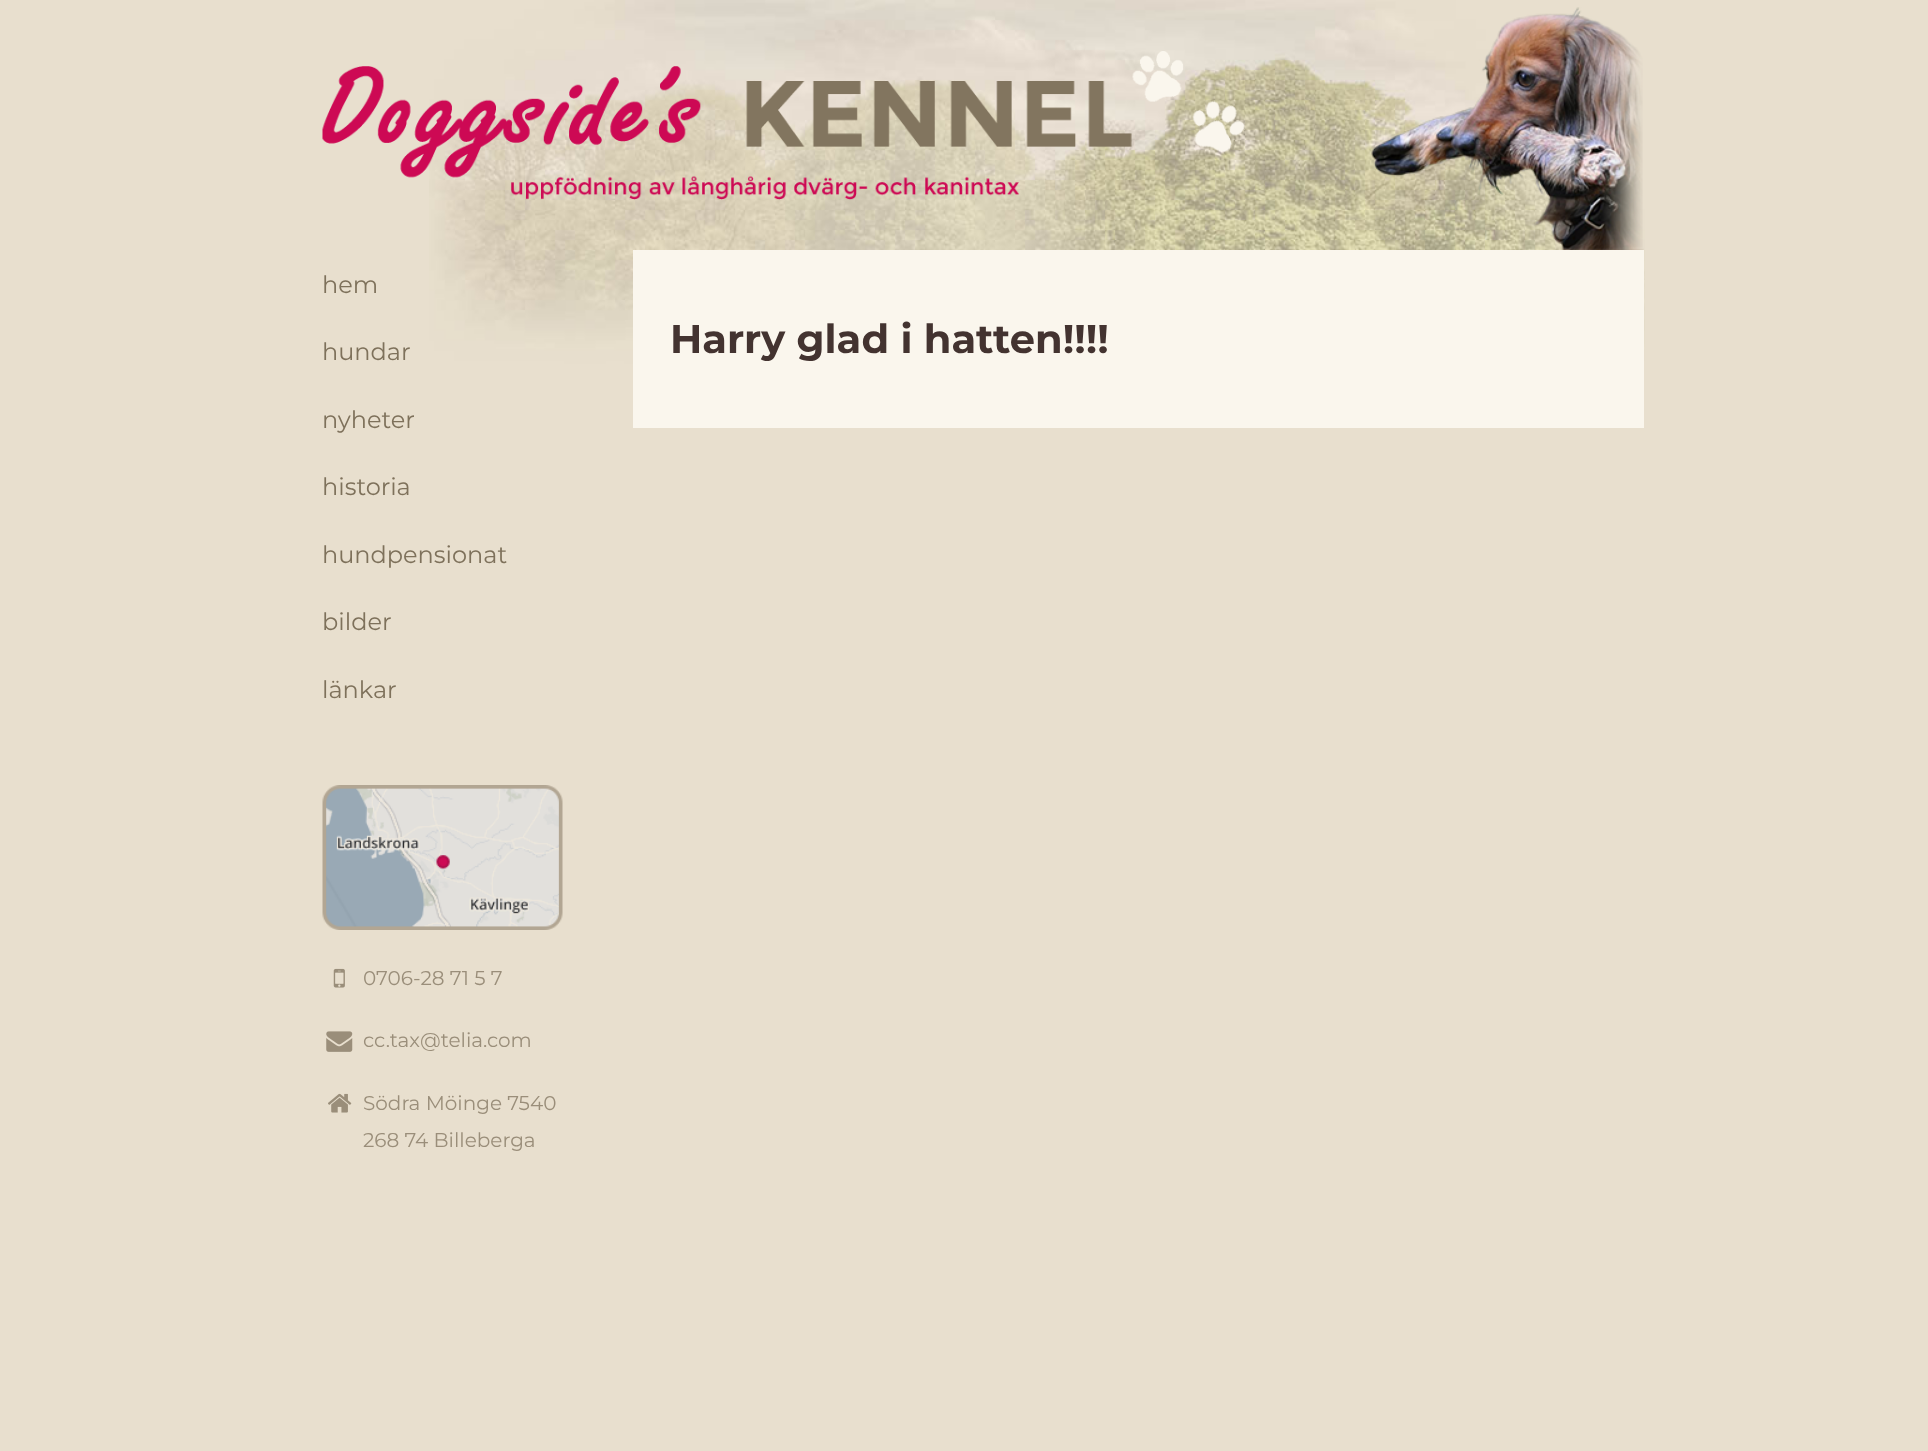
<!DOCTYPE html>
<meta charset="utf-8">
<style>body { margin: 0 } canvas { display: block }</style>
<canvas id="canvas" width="1928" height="1451"></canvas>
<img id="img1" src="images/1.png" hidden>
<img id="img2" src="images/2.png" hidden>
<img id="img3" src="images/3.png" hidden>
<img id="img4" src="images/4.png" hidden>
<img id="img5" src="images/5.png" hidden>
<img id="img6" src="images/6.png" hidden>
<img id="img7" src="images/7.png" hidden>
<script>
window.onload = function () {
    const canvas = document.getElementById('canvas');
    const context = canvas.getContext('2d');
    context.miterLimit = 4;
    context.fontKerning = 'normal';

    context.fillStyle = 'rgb(232, 223, 206)';
    context.fillRect(0, 0, 1928, 1451);
    context.drawImage(document.getElementById('img1'), 429, 0, 1216, 364);
    context.drawImage(document.getElementById('img2'), 1363, 7, 281, 243);
    context.drawImage(document.getElementById('img3'), 322, 51, 923, 149);
    context.drawImage(document.getElementById('img4'), 322, 785, 241, 145);
    context.drawImage(document.getElementById('img5'), 333, 968, 12, 20);
    context.drawImage(document.getElementById('img6'), 326, 1031, 27, 21);
    context.drawImage(document.getElementById('img7'), 328, 1093, 24, 20);
    context.fillStyle = 'rgb(250, 246, 237)';
    context.fillRect(633, 250, 1011, 178);
    context.font = '24px Montserrat';
    context.fillStyle = 'rgb(126, 113, 91)';
    context.fillText('hem', 322, 293);
    context.fillText('hundar', 322, 360);
    context.fillText('nyheter', 322, 428);
    context.fillText('historia', 322, 495);
    context.fillText('hundpensionat', 322, 563);
    context.fillText('bilder', 322, 630);
    context.fillText('länkar', 322, 698);
    context.font = '20px Montserrat';
    context.fillStyle = 'rgb(154, 142, 122)';
    context.fillText('0706-28 71 5 7', 363, 985);
    context.fillText('cc.tax@telia.com', 363, 1047);
    context.fillText('Södra Möinge 7540', 363, 1110);
    context.fillText('268 74 Billeberga', 363, 1147);
    context.font = 'bold 40px Montserrat';
    context.fillStyle = 'rgb(67, 51, 48)';
    context.fillText('Harry glad i hatten!!!!', 670, 353);
};
</script>
